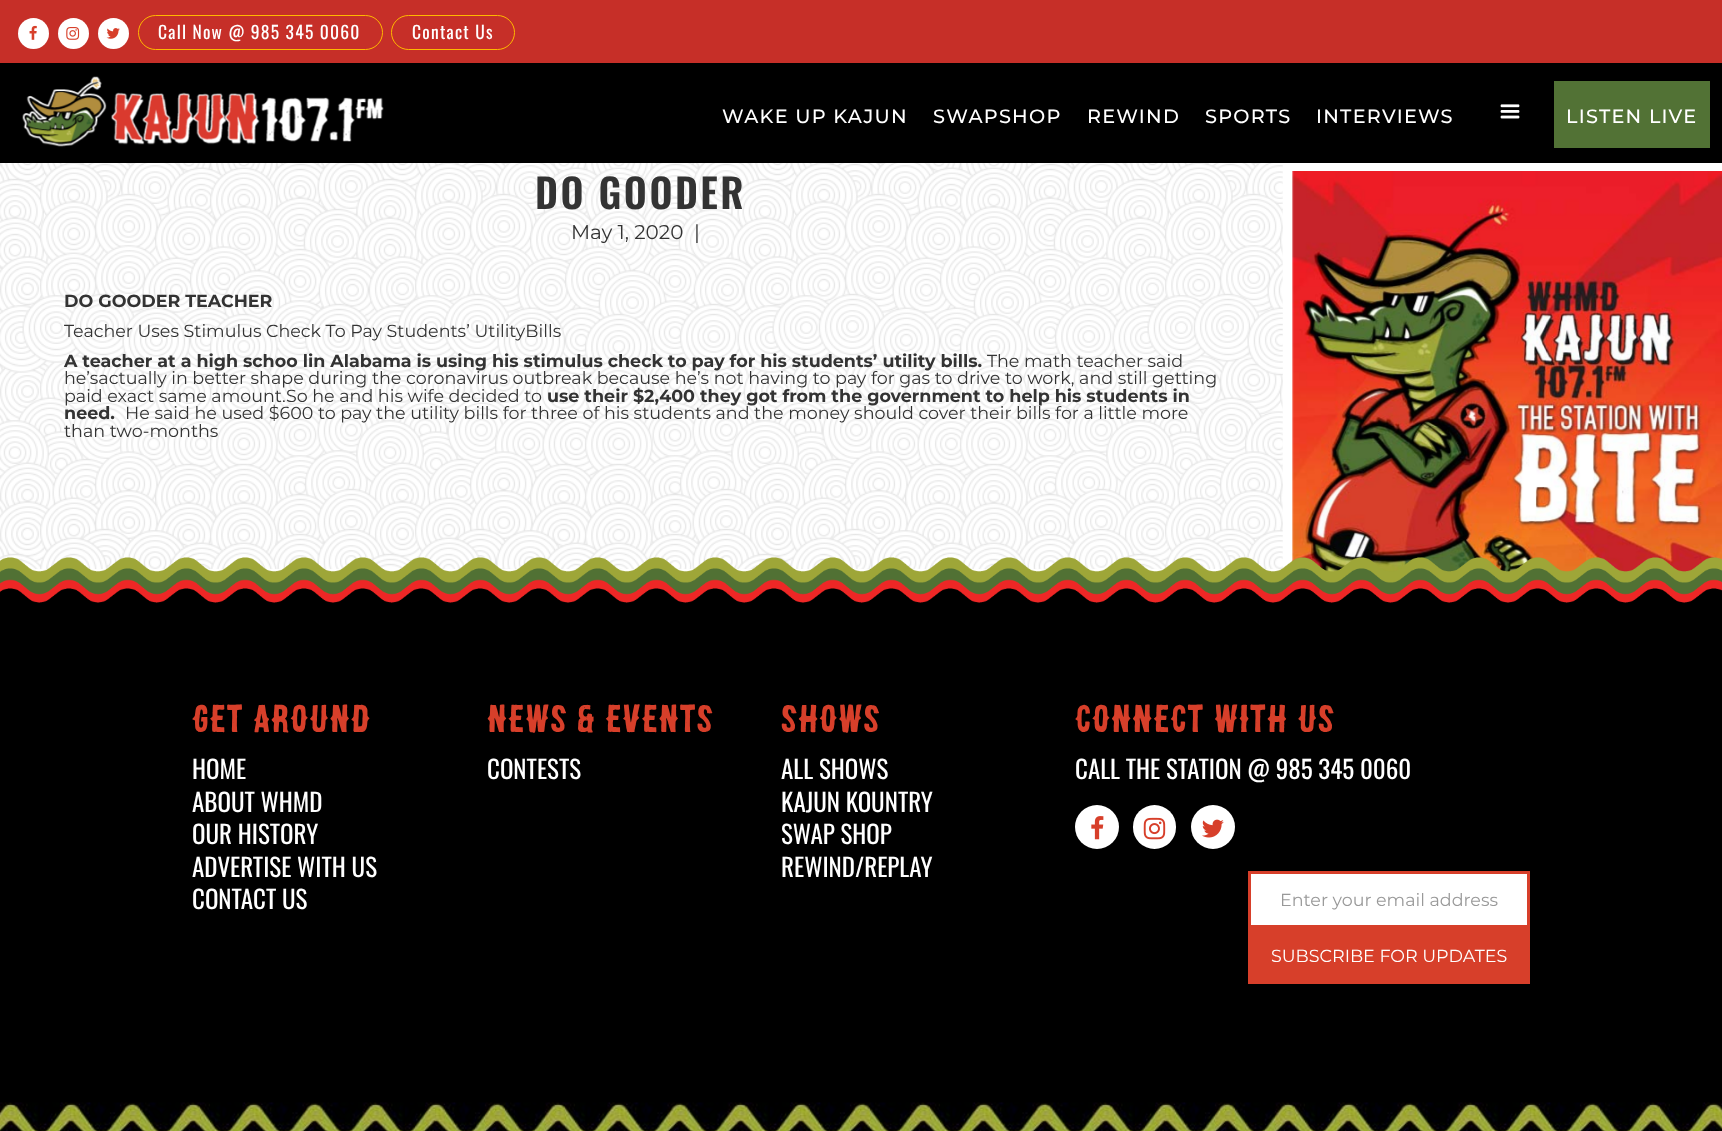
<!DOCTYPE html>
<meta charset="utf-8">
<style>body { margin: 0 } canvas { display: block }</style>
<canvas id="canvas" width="1722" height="1131"></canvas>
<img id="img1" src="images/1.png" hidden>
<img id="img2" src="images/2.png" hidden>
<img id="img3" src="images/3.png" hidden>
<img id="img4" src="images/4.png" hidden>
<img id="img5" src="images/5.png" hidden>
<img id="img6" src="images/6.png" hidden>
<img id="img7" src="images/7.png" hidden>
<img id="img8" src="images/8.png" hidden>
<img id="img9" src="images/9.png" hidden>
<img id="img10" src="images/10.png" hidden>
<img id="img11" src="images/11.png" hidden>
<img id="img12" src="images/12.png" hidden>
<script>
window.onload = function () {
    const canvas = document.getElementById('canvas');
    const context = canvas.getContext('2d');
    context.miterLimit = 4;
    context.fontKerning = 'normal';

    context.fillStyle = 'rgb(255, 255, 255)';
    context.fillRect(0, 0, 1722, 1131);
    context.fillStyle = 'rgb(198, 47, 40)';
    context.fillRect(0, 0, 1722, 63);
    context.fillStyle = 'rgb(255, 255, 255)';
    context.beginPath();
    context.arc(33.5, 33.5, 15.5, 0, 2 * Math.PI);
    context.fill();
    context.drawImage(document.getElementById('img1'), 29, 25, 8, 15);
    context.beginPath();
    context.arc(73.5, 33.5, 15.5, 0, 2 * Math.PI);
    context.fill();
    context.drawImage(document.getElementById('img2'), 66, 27, 14, 13);
    context.beginPath();
    context.arc(113.5, 33.5, 15.5, 0, 2 * Math.PI);
    context.fill();
    context.drawImage(document.getElementById('img3'), 106, 28, 14, 11);
    context.beginPath();
    context.roundRect(138.5, 15.5, 244, 34, 17);
    context.strokeStyle = 'rgb(255, 184, 0)';
    context.stroke();
    context.beginPath();
    context.roundRect(391.5, 15.5, 123, 34, 17);
    context.stroke();
    context.fillStyle = 'rgb(0, 0, 0)';
    context.fillRect(0, 63, 1722, 100);
    context.drawImage(document.getElementById('img4'), 22, 76, 362, 71);
    context.drawImage(document.getElementById('img5'), 1500, 104, 20, 15);
    context.fillStyle = 'rgb(82, 114, 53)';
    context.fillRect(1554, 81, 156, 67);
    context.drawImage(document.getElementById('img6'), 0, 163, 1283, 406);
    context.drawImage(document.getElementById('img7'), 1292, 171, 430, 401);
    context.drawImage(document.getElementById('img8'), 0, 557, 1722, 48);
    context.fillStyle = 'rgb(0, 0, 0)';
    context.fillRect(0, 605, 1722, 498);
    context.fillStyle = 'rgb(255, 255, 255)';
    context.beginPath();
    context.arc(1097, 827, 22, 0, 2 * Math.PI);
    context.fill();
    context.drawImage(document.getElementById('img9'), 1091, 816, 13, 24);
    context.beginPath();
    context.roundRect(1133, 805, 43, 44, 21.5);
    context.fill();
    context.drawImage(document.getElementById('img10'), 1143, 817, 23, 23);
    context.beginPath();
    context.arc(1213, 827, 22, 0, 2 * Math.PI);
    context.fill();
    context.drawImage(document.getElementById('img11'), 1202, 819, 22, 19);
    context.beginPath();
    context.rect(1249.5, 872.5, 279, 54);
    context.fill();
    context.strokeStyle = 'rgb(215, 63, 42)';
    context.lineWidth = 3;
    context.stroke();
    context.fillStyle = 'rgb(215, 63, 42)';
    context.fillRect(1248, 928, 282, 56);
    context.drawImage(document.getElementById('img12'), 0, 1102, 1722, 29);
    context.letterSpacing = '1.25px';
    context.font = '17.5px Oswald';
    context.fillStyle = 'rgb(255, 255, 255)';
    context.fillText('Call Now @ 985 345 0060', 158, 39);
    context.fillText('Contact Us', 412, 39);
    context.font = '500 19.25px Montserrat';
    context.fillText('WAKE UP KAJUN', 722, 123);
    context.fillText('SWAPSHOP', 933, 123);
    context.fillText('REWIND', 1087, 123);
    context.fillText('SPORTS', 1205, 123);
    context.fillText('INTERVIEWS', 1316, 123);
    context.fillText('LISTEN LIVE', 1566, 123);
    context.letterSpacing = '2.5px';
    context.font = '600 40px Oswald';
    context.fillStyle = 'rgb(51, 51, 51)';
    context.fillText('DO GOODER', 535, 209);
    context.letterSpacing = '0px';
    context.font = '20px Montserrat';
    context.fillText('May 1, 2020', 571, 239);
    context.fillText('|', 694, 239);
    context.font = 'bold 17.5px Montserrat';
    context.fillText('DO GOODER TEACHER', 64, 307);
    context.font = '17.5px Montserrat';
    context.fillText('Teacher Uses Stimulus Check To Pay Students’ UtilityBills', 64, 337);
    context.font = 'bold 17.5px Montserrat';
    context.fillText('A teacher at a high schoo lin Alabama is using his stimulus check to pay for his students’ utility bills.', 64, 367);
    context.font = '17.5px Montserrat';
    context.fillText('The math teacher said', 987, 367);
    context.fillText('he’sactually in better shape during the coronavirus outbreak because he’s not having to pay for gas to drive to work, and still getting', 64, 384);
    context.fillText('paid exact same amount.So he and his wife decided to', 64, 402);
    context.font = 'bold 17.5px Montserrat';
    context.fillText('use their $2,400 they got from the government to help his students in', 547, 402);
    context.fillText('need.', 64, 419);
    context.font = '17.5px Montserrat';
    context.fillText('He said he used $600 to pay the utility bills for three of his students and the money should cover their bills for a little more', 125, 419);
    context.fillText('than two-months', 64, 437);
    context.letterSpacing = '1.25px';
    context.font = '33.75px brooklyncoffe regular';
    context.fillStyle = 'rgb(215, 63, 42)';
    context.fillText('Get around', 192, 732);
    context.letterSpacing = '0px';
    context.font = '25px Oswald';
    context.fillStyle = 'rgb(255, 255, 255)';
    context.fillText('HOME', 192, 779);
    context.fillText('ABOUT WHMD', 192, 812);
    context.fillText('OUR HISTORY', 192, 844);
    context.fillText('ADVERTISE WITH US', 192, 877);
    context.fillText('CONTACT US', 192, 909);
    context.letterSpacing = '1.25px';
    context.font = '33.75px brooklyncoffe regular';
    context.fillStyle = 'rgb(215, 63, 42)';
    context.fillText('News & events', 487, 732);
    context.letterSpacing = '0px';
    context.font = '25px Oswald';
    context.fillStyle = 'rgb(255, 255, 255)';
    context.fillText('CONTESTS', 487, 779);
    context.letterSpacing = '1.25px';
    context.font = '33.75px brooklyncoffe regular';
    context.fillStyle = 'rgb(215, 63, 42)';
    context.fillText('shows', 781, 732);
    context.letterSpacing = '0px';
    context.font = '25px Oswald';
    context.fillStyle = 'rgb(255, 255, 255)';
    context.fillText('ALL SHOWS', 781, 779);
    context.fillText('KAJUN KOUNTRY', 781, 812);
    context.fillText('SWAP SHOP', 781, 844);
    context.fillText('REWIND/REPLAY', 781, 877);
    context.letterSpacing = '1.25px';
    context.font = '33.75px brooklyncoffe regular';
    context.fillStyle = 'rgb(215, 63, 42)';
    context.fillText('connect with us', 1075, 732);
    context.letterSpacing = '0px';
    context.font = '25px Oswald';
    context.fillStyle = 'rgb(255, 255, 255)';
    context.fillText('CALL THE STATION @ 985 345 0060', 1075, 779);
    context.font = '17.5px Montserrat';
    context.fillStyle = 'rgb(153, 153, 153)';
    context.fillText('Enter your email address', 1280, 906);
    context.fillStyle = 'rgb(255, 255, 255)';
    context.fillText('SUBSCRIBE FOR UPDATES', 1271, 962);
};
</script>
